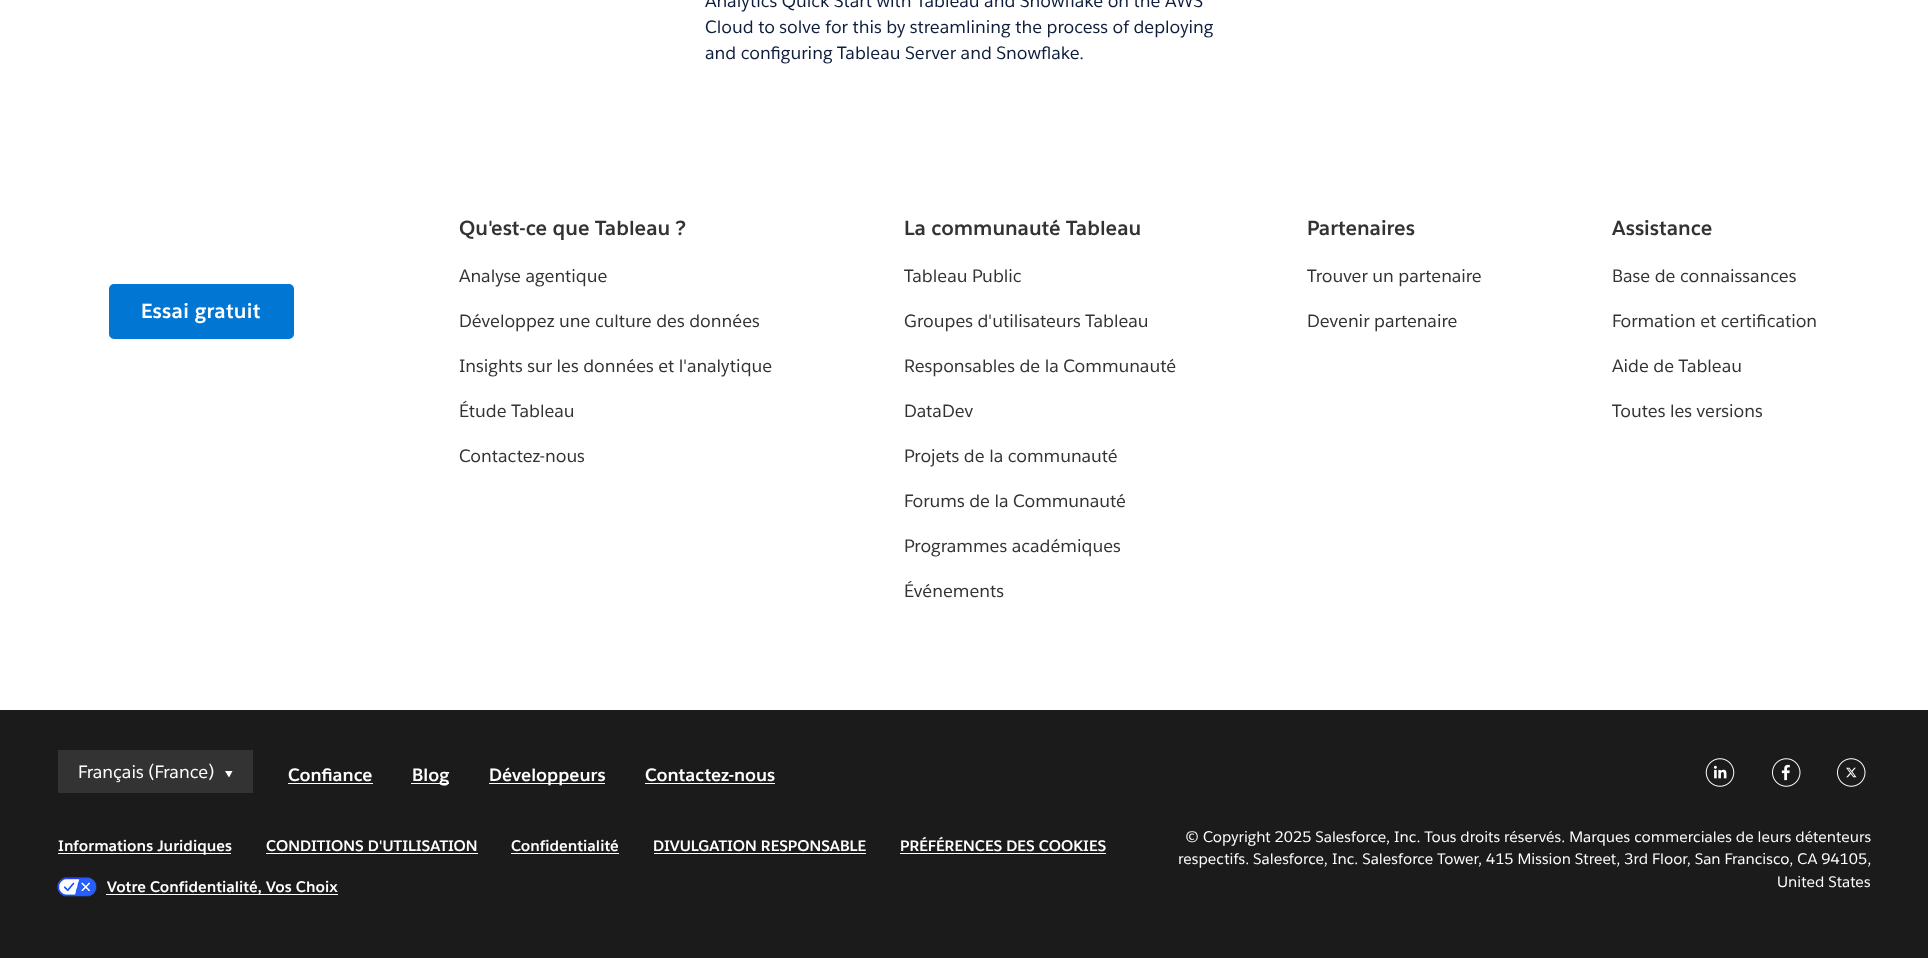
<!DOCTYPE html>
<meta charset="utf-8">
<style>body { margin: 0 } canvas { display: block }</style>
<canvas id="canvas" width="1928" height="958"></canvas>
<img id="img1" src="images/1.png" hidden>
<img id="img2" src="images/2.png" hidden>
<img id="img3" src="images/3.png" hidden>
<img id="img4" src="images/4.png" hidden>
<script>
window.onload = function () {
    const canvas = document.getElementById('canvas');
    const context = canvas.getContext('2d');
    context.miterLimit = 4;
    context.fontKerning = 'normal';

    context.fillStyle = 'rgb(255, 255, 255)';
    context.fillRect(0, 0, 1928, 958);
    context.fillStyle = 'rgb(1, 118, 211)';
    context.beginPath();
    context.roundRect(110.5, 285.5, 182, 52, 3.5);
    context.fill();
    context.strokeStyle = 'rgb(1, 118, 211)';
    context.lineWidth = 3;
    context.stroke();
    context.fillStyle = 'rgb(27, 27, 27)';
    context.fillRect(0, 710, 1928, 248);
    context.fillStyle = 'rgb(51, 51, 51)';
    context.fillRect(58, 750, 195, 43);
    context.fillStyle = 'rgb(255, 255, 255)';
    context.beginPath();
    context.moveTo(225, 771);
    context.lineTo(232.5, 771);
    context.lineTo(229, 777.5);
    context.closePath();
    context.fill();
    context.fillRect(288, 783, 85, 1);
    context.fillRect(411, 783, 38, 1);
    context.fillRect(489, 783, 116, 1);
    context.fillRect(645, 783, 130, 1);
    context.fillRect(58, 853, 173, 1);
    context.fillRect(266, 853, 212, 1);
    context.fillRect(511, 853, 108, 1);
    context.fillRect(654, 853, 212, 1);
    context.fillRect(900, 853, 206, 1);
    context.drawImage(document.getElementById('img1'), 57, 877, 40, 20);
    context.fillRect(106, 894, 232, 1);
    context.drawImage(document.getElementById('img2'), 1705, 758, 30, 29);
    context.drawImage(document.getElementById('img3'), 1772, 758, 29, 29);
    context.drawImage(document.getElementById('img4'), 1837, 758, 29, 29);
    context.font = '17.5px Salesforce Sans';
    context.fillStyle = 'rgb(15, 30, 60)';
    context.fillText('Analytics Quick Start with Tableau and Snowflake on the AWS', 705, 7);
    context.fillText('Cloud to solve for this by streamlining the process of deploying', 705, 33);
    context.fillText('and configuring Tableau Server and Snowflake.', 705, 59);
    context.letterSpacing = '0.25px';
    context.font = 'bold 20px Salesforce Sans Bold';
    context.fillStyle = 'rgb(255, 255, 255)';
    context.fillText('Essai gratuit', 141, 318);
    context.letterSpacing = '0px';
    context.fillStyle = 'rgb(51, 51, 51)';
    context.fillText('Qu\'est-ce que Tableau ?', 459, 235);
    context.font = '17.5px Salesforce Sans';
    context.fillText('Analyse agentique', 459, 282);
    context.fillText('Développez une culture des données', 459, 327);
    context.fillText('Insights sur les données et l\'analytique', 459, 372);
    context.fillText('Étude Tableau', 459, 417);
    context.fillText('Contactez-nous', 459, 462);
    context.font = 'bold 20px Salesforce Sans Bold';
    context.fillText('La communauté Tableau', 904, 235);
    context.font = '17.5px Salesforce Sans';
    context.fillText('Tableau Public', 904, 282);
    context.fillText('Groupes d\'utilisateurs Tableau', 904, 327);
    context.fillText('Responsables de la Communauté', 904, 372);
    context.fillText('DataDev', 904, 417);
    context.fillText('Projets de la communauté', 904, 462);
    context.fillText('Forums de la Communauté', 904, 507);
    context.fillText('Programmes académiques', 904, 552);
    context.fillText('Événements', 904, 597);
    context.font = 'bold 20px Salesforce Sans Bold';
    context.fillText('Partenaires', 1307, 235);
    context.font = '17.5px Salesforce Sans';
    context.fillText('Trouver un partenaire', 1307, 282);
    context.fillText('Devenir partenaire', 1307, 327);
    context.font = 'bold 20px Salesforce Sans Bold';
    context.fillText('Assistance', 1612, 235);
    context.font = '17.5px Salesforce Sans';
    context.fillText('Base de connaissances', 1612, 282);
    context.fillText('Formation et certification', 1612, 327);
    context.fillText('Aide de Tableau', 1612, 372);
    context.fillText('Toutes les versions', 1612, 417);
    context.fillStyle = 'rgb(255, 255, 255)';
    context.fillText('Français (France)', 78, 778);
    context.font = 'bold 17.5px Salesforce Sans Bold';
    context.fillText('Confiance', 288, 781);
    context.fillText('Blog', 412, 781);
    context.fillText('Développeurs', 489, 781);
    context.fillText('Contactez-nous', 645, 781);
    context.letterSpacing = '0.04px';
    context.font = 'bold 15px Salesforce Sans Bold';
    context.fillText('Informations Juridiques', 58, 851);
    context.fillText('CONDITIONS D\'UTILISATION', 266, 851);
    context.fillText('Confidentialité', 511, 851);
    context.fillText('DIVULGATION RESPONSABLE', 653, 851);
    context.fillText('PRÉFÉRENCES DES COOKIES', 900, 851);
    context.fillText('Votre Confidentialité, Vos Choix', 107, 892);
    context.font = '15px Salesforce Sans';
    context.fillText('© Copyright 2025 Salesforce, Inc. Tous droits réservés. Marques commerciales de leurs détenteurs', 1185, 842);
    context.fillText('respectifs. Salesforce, Inc. Salesforce Tower, 415 Mission Street, 3rd Floor, San Francisco, CA 94105,', 1178, 864);
    context.fillText('United States', 1777, 887);
};
</script>
